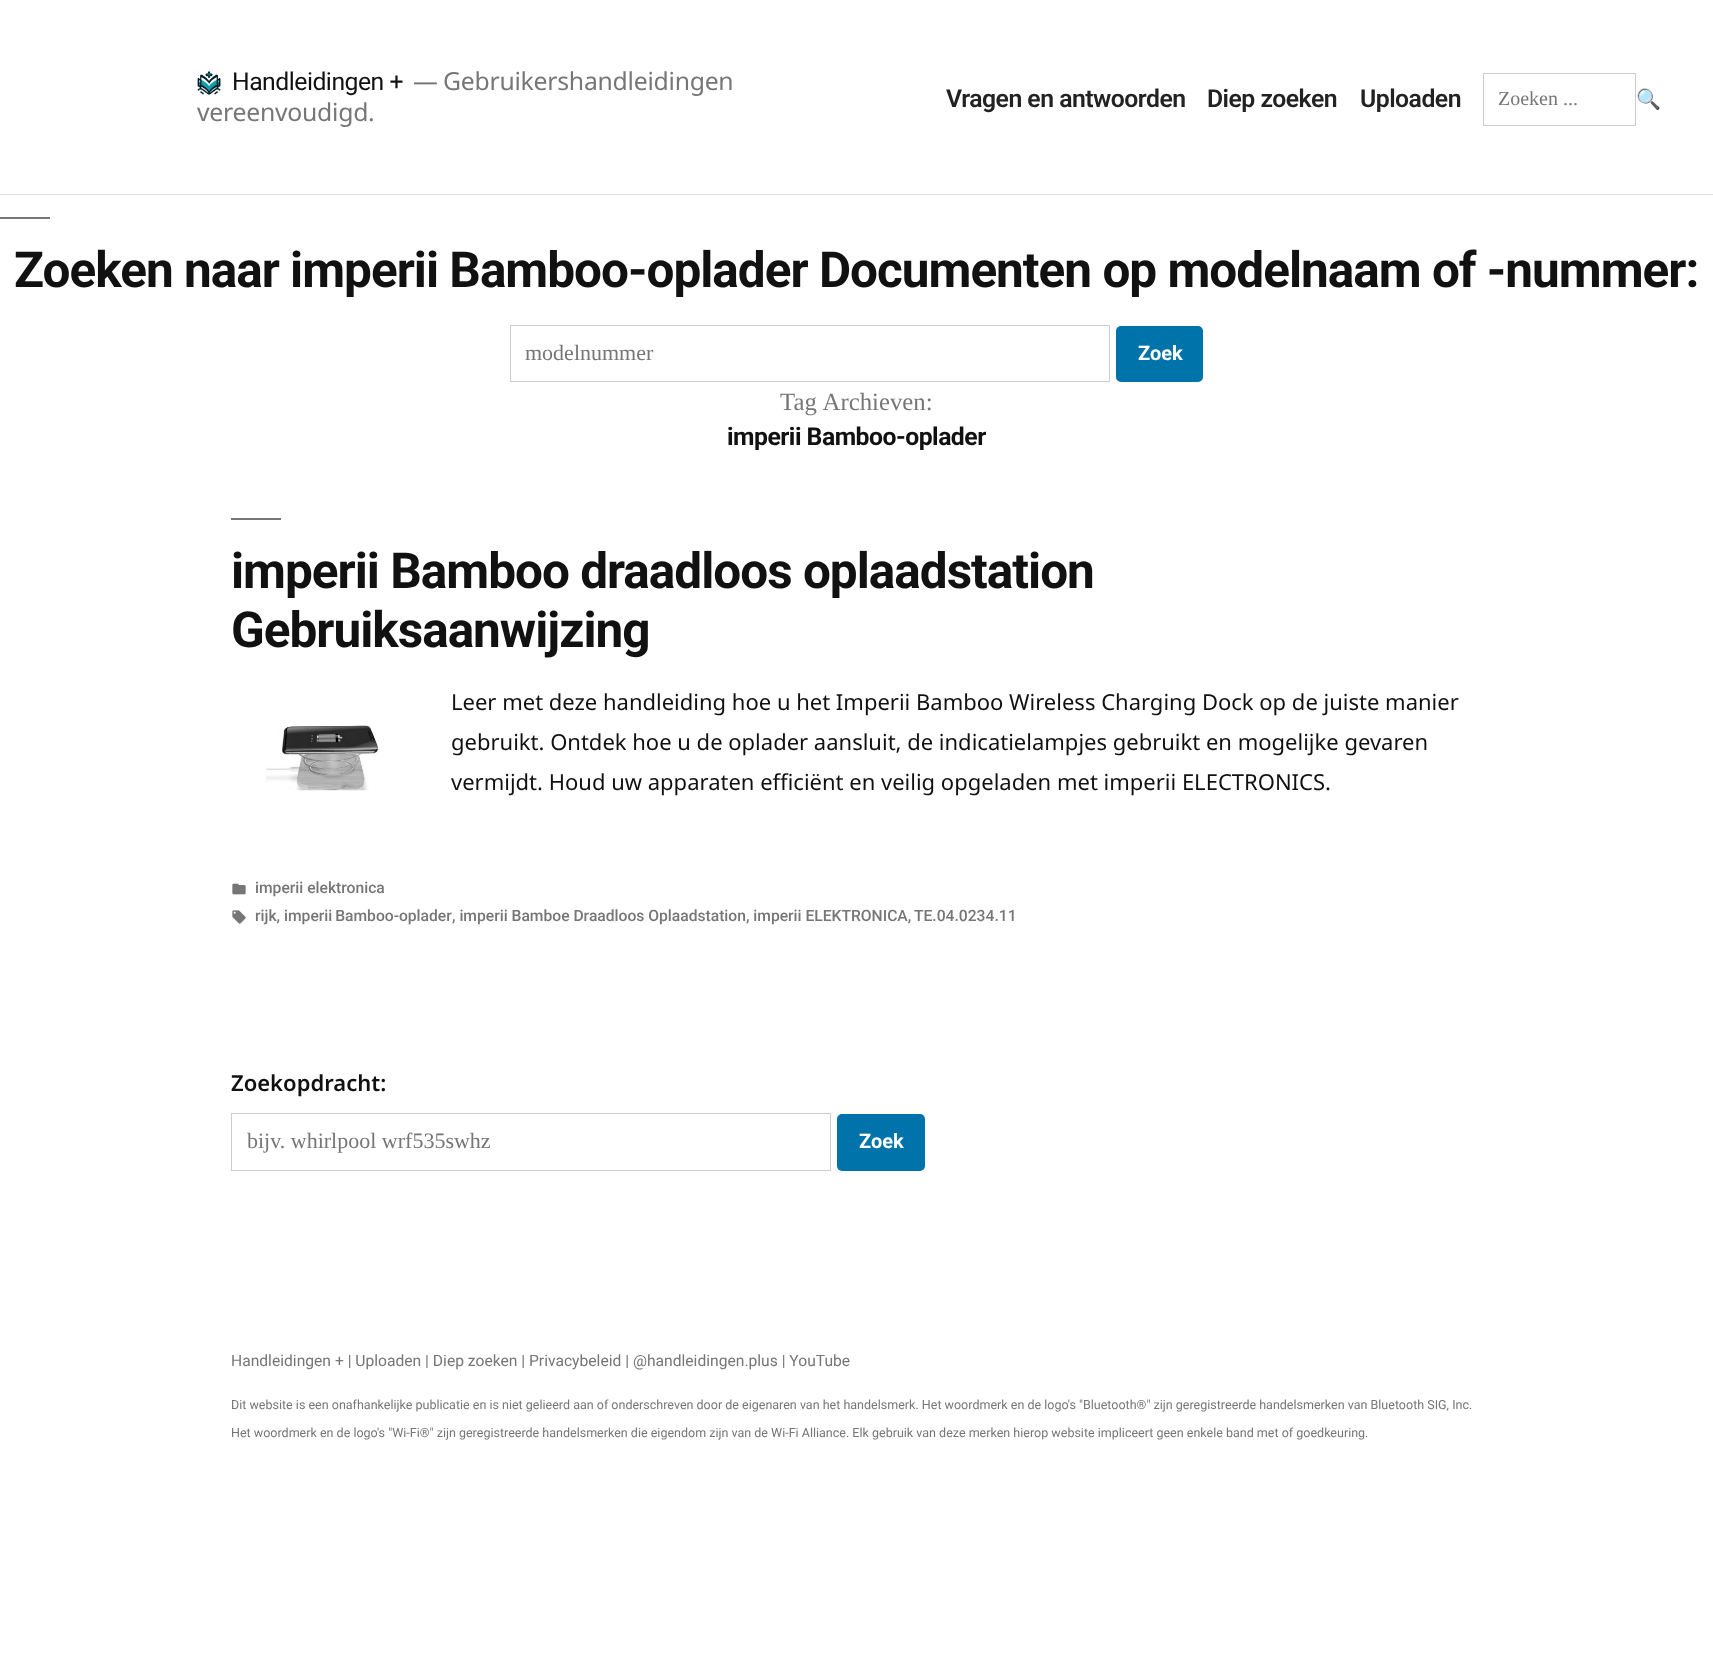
<!DOCTYPE html>
<meta charset="utf-8">
<style>body { margin: 0 } canvas { display: block }</style>
<canvas id="canvas" width="1713" height="1658"></canvas>
<img id="img1" src="images/1.png" hidden>
<img id="img2" src="images/2.png" hidden>
<img id="img3" src="images/3.png" hidden>
<img id="img4" src="images/4.png" hidden>
<script>
window.onload = function () {
    const canvas = document.getElementById('canvas');
    const context = canvas.getContext('2d');
    context.miterLimit = 4;
    context.fontKerning = 'normal';

    context.fillStyle = 'rgb(255, 255, 255)';
    context.fillRect(0, 0, 1713, 1658);
    context.fillStyle = 'rgb(224, 224, 224)';
    context.fillRect(0, 194, 1713, 1);
    context.drawImage(document.getElementById('img1'), 197, 71, 24, 24);
    context.fillStyle = 'rgb(118, 118, 118)';
    context.fillRect(0, 217, 50, 2);
    context.strokeStyle = 'rgb(204, 204, 204)';
    context.strokeRect(510.5, 325.5, 599, 56);
    context.fillStyle = 'rgb(0, 115, 170)';
    context.beginPath();
    context.roundRect(1116, 326, 87, 56, 5);
    context.fill();
    context.fillStyle = 'rgb(118, 118, 118)';
    context.fillRect(231, 518, 50, 2);
    context.drawImage(document.getElementById('img2'), 266, 725, 113, 66);
    context.drawImage(document.getElementById('img3'), 232, 883, 14, 12);
    context.drawImage(document.getElementById('img4'), 232, 910, 14, 14);
    context.strokeRect(231.5, 1113.5, 599, 57);
    context.fillStyle = 'rgb(0, 115, 170)';
    context.beginPath();
    context.roundRect(837, 1114, 88, 57, 5);
    context.fill();
    context.letterSpacing = '-0.5px';
    context.font = '24.75px Roboto';
    context.fillStyle = 'rgb(17, 17, 17)';
    context.fillText('Handleidingen +', 232, 90);
    context.letterSpacing = '-0.25px';
    context.font = '24.75px Noto Sans';
    context.fillStyle = 'rgb(118, 118, 118)';
    context.fillText('—', 413, 90);
    context.fillText('Gebruikershandleidingen', 443, 90);
    context.fillText('vereenvoudigd.', 197, 121);
    context.letterSpacing = '-0.5px';
    context.font = '600 24.75px Roboto';
    context.fillStyle = 'rgb(34, 34, 34)';
    context.fillText('Vragen en antwoorden', 946, 107);
    context.fillText('Diep zoeken', 1207, 107);
    context.fillText('Uploaden', 1360, 107);
    context.letterSpacing = '0px';
    context.font = 'bold 20px Noto Color Emoji';
    context.fillStyle = 'rgb(17, 17, 17)';
    context.fillText('🔍', 1636, 106);
    context.strokeRect(1483.5, 73.5, 152, 52);
    context.font = '20px Liberation Serif';
    context.fillStyle = 'rgb(118, 118, 118)';
    context.fillText('Zoeken ...', 1498, 105);
    context.letterSpacing = '-1px';
    context.font = 'bold 49.5px Roboto';
    context.fillStyle = 'rgb(17, 17, 17)';
    context.fillText('Zoeken naar imperii Bamboo-oplader Documenten op modelnaam of -nummer:', 14, 287);
    context.letterSpacing = '0px';
    context.font = '22px Liberation Serif';
    context.fillStyle = 'rgb(118, 118, 118)';
    context.fillText('modelnummer', 525, 360);
    context.font = 'bold 20px Roboto';
    context.fillStyle = 'rgb(255, 255, 255)';
    context.fillText('Zoek', 1138, 360);
    context.wordSpacing = '1px';
    context.font = '24.75px Liberation Serif';
    context.fillStyle = 'rgb(118, 118, 118)';
    context.fillText('Tag Archieven:', 780, 410);
    context.letterSpacing = '-0.5px';
    context.wordSpacing = '0px';
    context.font = 'bold 24.75px Roboto';
    context.fillStyle = 'rgb(17, 17, 17)';
    context.fillText('imperii Bamboo-oplader', 727, 445);
    context.letterSpacing = '-1px';
    context.font = 'bold 49.5px Roboto';
    context.fillText('imperii Bamboo draadloos oplaadstation', 231, 588);
    context.fillText('Gebruiksaanwijzing', 231, 647);
    context.letterSpacing = '0px';
    context.font = '22px Noto Sans';
    context.fillText('Leer met deze handleiding hoe u het Imperii Bamboo Wireless Charging Dock op de juiste manier', 451, 710);
    context.fillText('gebruikt. Ontdek hoe u de oplader aansluit, de indicatielampjes gebruikt en mogelijke gevaren', 451, 750);
    context.fillText('vermijdt. Houd uw apparaten efficiënt en veilig opgeladen met imperii ELECTRONICS.', 451, 790);
    context.font = '500 15.65px Roboto';
    context.fillStyle = 'rgb(118, 118, 118)';
    context.fillText('imperii elektronica', 255, 893);
    context.fillText('rijk,', 255, 921);
    context.wordSpacing = '-1px';
    context.fillText('imperii Bamboo-oplader', 284, 921);
    context.wordSpacing = '0px';
    context.fillText(', imperii Bamboe Draadloos Oplaadstation, imperii ELEKTRONICA,', 452, 921);
    context.fillText('TE.04.0234.11', 914, 921);
    context.font = '600 22px Noto Sans';
    context.fillStyle = 'rgb(17, 17, 17)';
    context.fillText('Zoekopdracht:', 231, 1091);
    context.font = '22px Liberation Serif';
    context.fillStyle = 'rgb(118, 118, 118)';
    context.fillText('bijv. whirlpool wrf535swhz', 247, 1148);
    context.font = 'bold 20px Roboto';
    context.fillStyle = 'rgb(255, 255, 255)';
    context.fillText('Zoek', 859, 1148);
    context.font = '15.65px Roboto';
    context.fillStyle = 'rgb(118, 118, 118)';
    context.fillText('Handleidingen + | Uploaden | Diep zoeken | Privacybeleid | @handleidingen.plus | YouTube', 231, 1366);
    context.font = '12.52px Roboto';
    context.fillText('Dit website is een onafhankelijke publicatie en is niet gelieerd aan of onderschreven door de eigenaren van het handelsmerk. Het woordmerk en de logo\'s "Bluetooth®" zijn geregistreerde handelsmerken van Bluetooth SIG, Inc.', 231, 1409);
    context.fillText('Het woordmerk en de logo\'s "Wi-Fi®" zijn geregistreerde handelsmerken die eigendom zijn van de Wi-Fi Alliance. Elk gebruik van deze merken hierop website impliceert geen enkele band met of goedkeuring.', 231, 1437);
};
</script>
